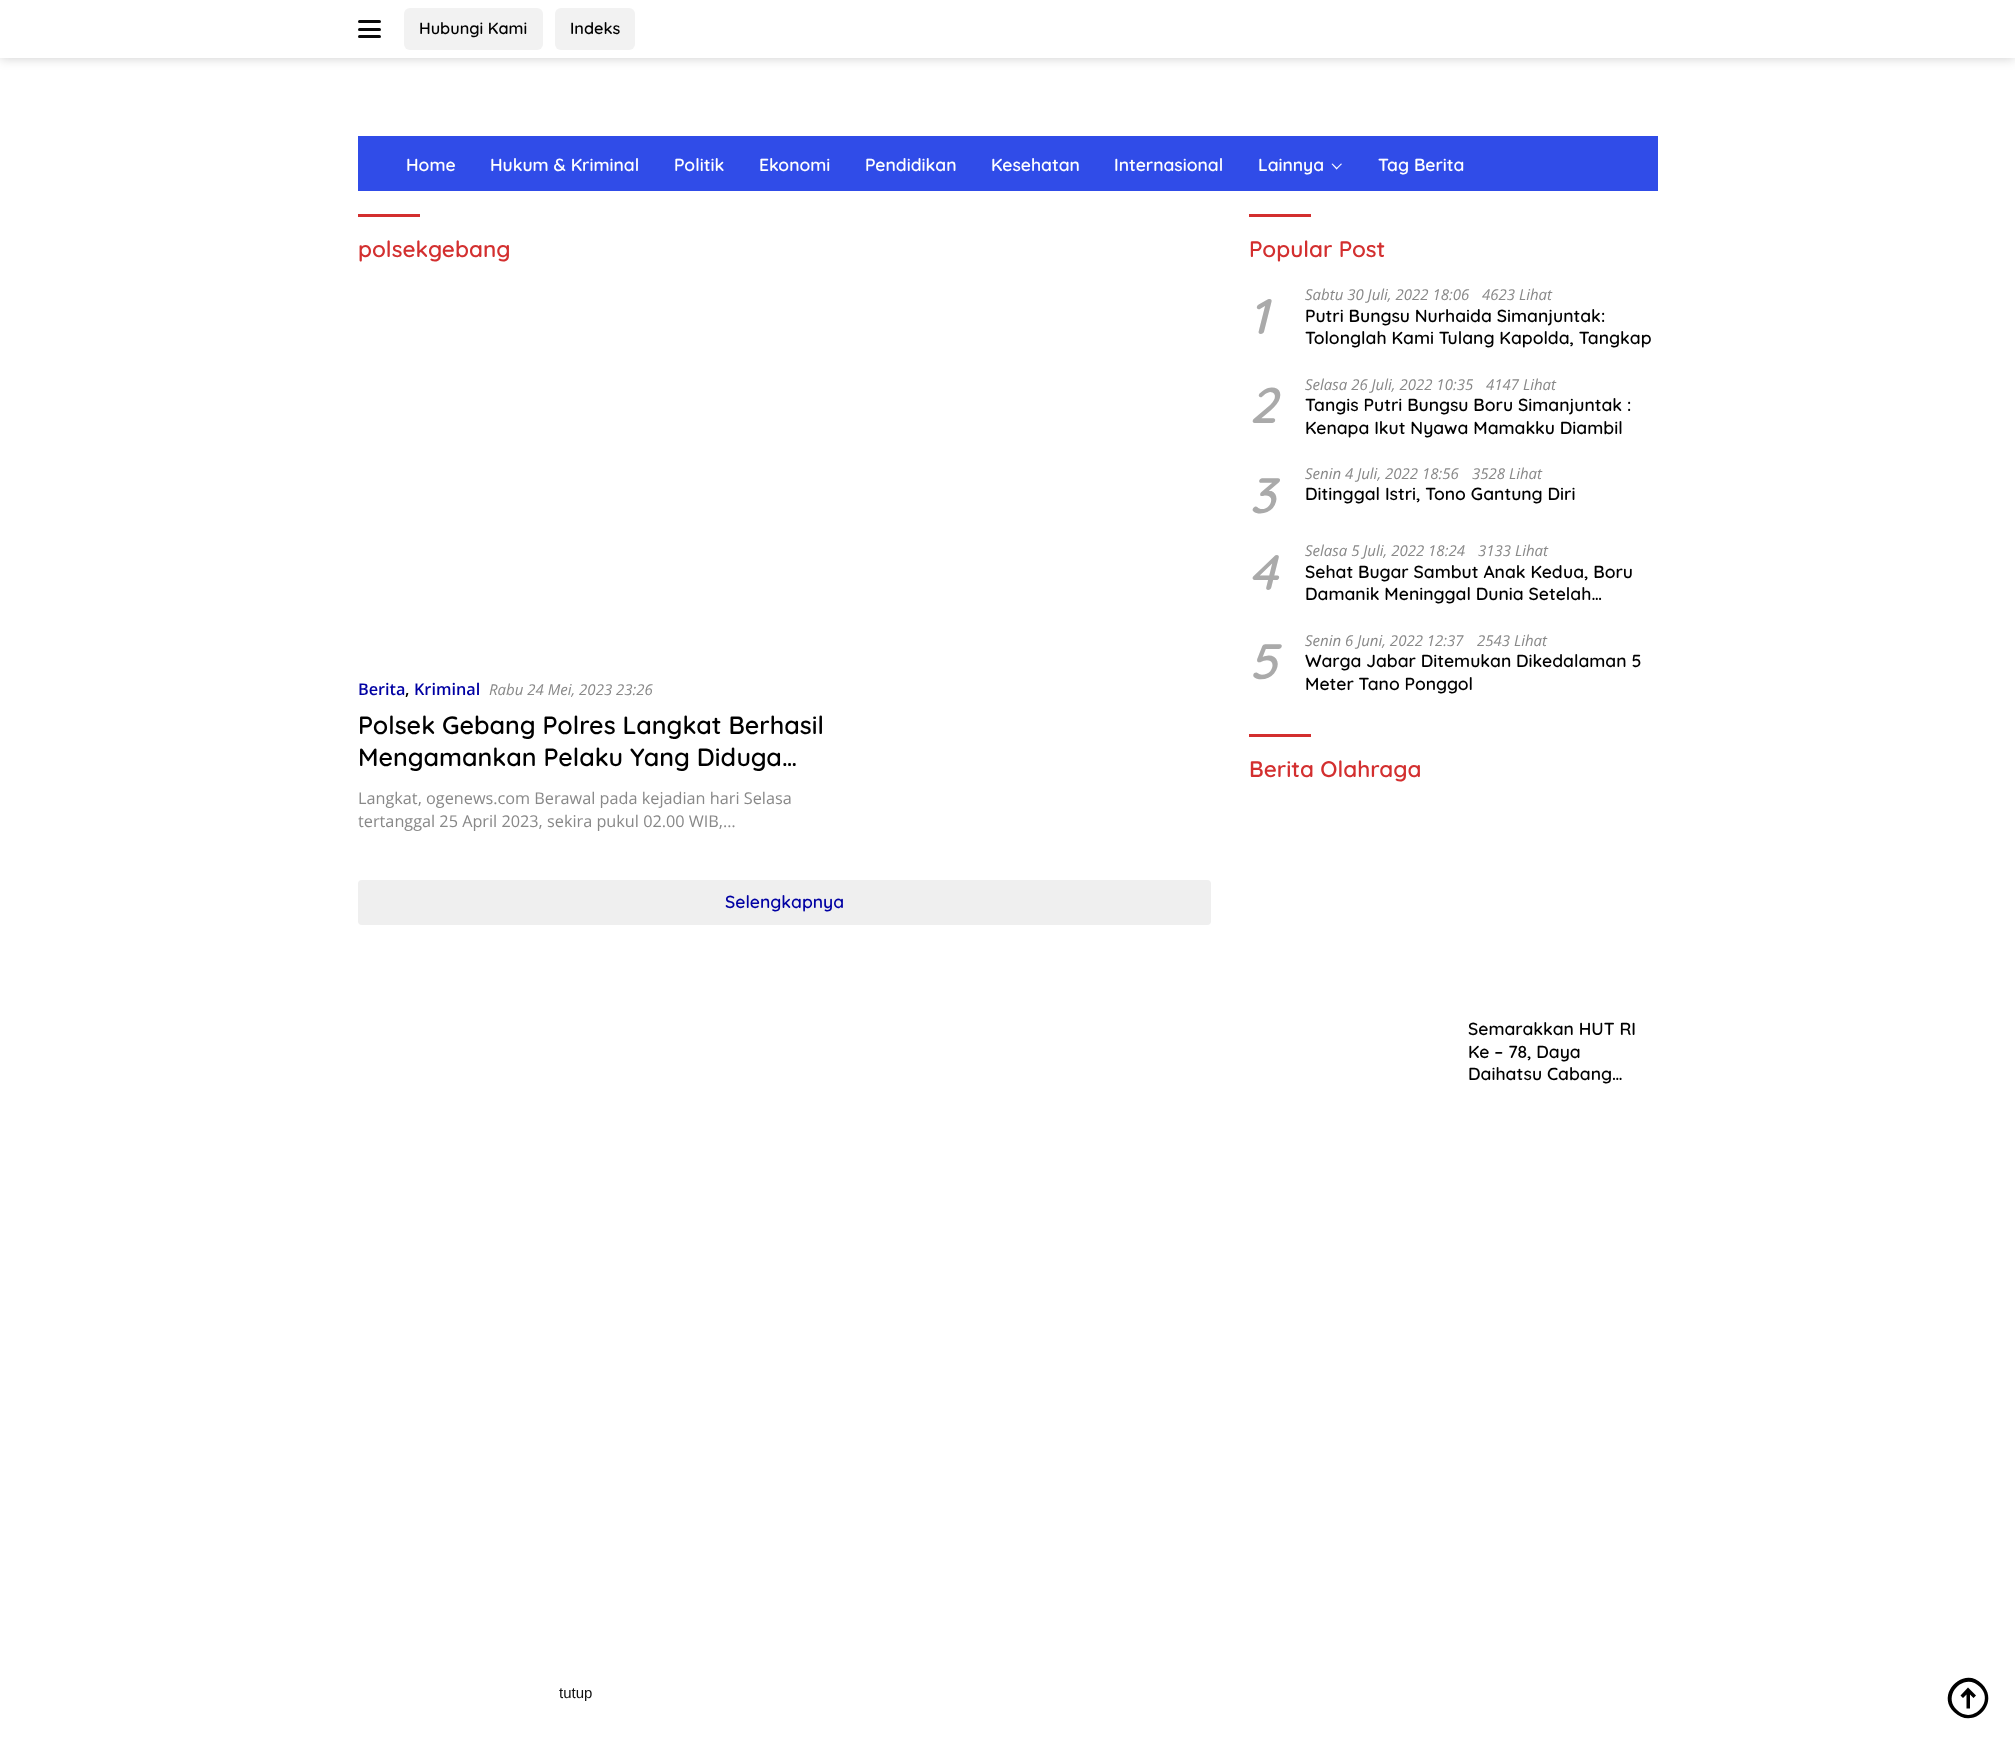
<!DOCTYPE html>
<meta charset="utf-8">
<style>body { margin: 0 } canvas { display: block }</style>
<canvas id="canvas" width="2015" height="1751"></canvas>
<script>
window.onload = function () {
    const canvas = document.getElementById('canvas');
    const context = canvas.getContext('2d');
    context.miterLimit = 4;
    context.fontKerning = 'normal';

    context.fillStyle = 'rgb(255, 255, 255)';
    context.fillRect(0, 0, 2015, 1751);
    context.fillStyle = 'rgba(0, 0, 0, 0.2)';
    context.filter = 'blur(6px)';
    context.beginPath();
    context.rect(0, 0, 2015, 58);
    context.fill();
    context.filter = 'none';
    context.fillStyle = 'rgb(255, 255, 255)';
    context.fillRect(0, 0, 2015, 58);
    context.fillStyle = 'rgb(10, 10, 10)';
    context.beginPath();
    context.roundRect(358, 20, 23, 3, 1.5);
    context.fill();
    context.beginPath();
    context.roundRect(358, 28, 23, 3, 1.5);
    context.fill();
    context.beginPath();
    context.roundRect(358, 35, 23, 3, 1.5);
    context.fill();
    context.fillStyle = 'rgb(242, 242, 242)';
    context.beginPath();
    context.roundRect(404, 8, 139, 42, 6);
    context.fill();
    context.beginPath();
    context.roundRect(555, 8, 80, 42, 6);
    context.fill();
    context.fillStyle = 'rgb(48, 76, 232)';
    context.fillRect(358, 136, 1300, 55);
    context.fillStyle = 'rgb(255, 255, 255)';
    context.beginPath();
    context.moveTo(1341, 163.5);
    context.lineTo(1342, 164);
    context.lineTo(1336.5, 169.5);
    context.lineTo(1336, 168.5);
    context.closePath();
    context.fill();
    context.beginPath();
    context.moveTo(1332.5, 163.5);
    context.lineTo(1337.5, 168.5);
    context.lineTo(1336.5, 169.5);
    context.lineTo(1331.5, 164);
    context.closePath();
    context.fill();
    context.fillStyle = 'rgb(211, 47, 47)';
    context.fillRect(358, 214, 62, 3);
    context.fillStyle = 'rgb(239, 239, 239)';
    context.beginPath();
    context.roundRect(358, 880, 853, 45, 4);
    context.fill();
    context.fillStyle = 'rgb(211, 47, 47)';
    context.fillRect(1249, 214, 62, 3);
    context.fillRect(1249, 734, 62, 3);
    context.fillStyle = 'rgb(0, 0, 0)';
    context.beginPath();
    context.moveTo(1973.5, 1698);
    context.lineTo(1976, 1695.5);
    context.lineTo(1968, 1687.5);
    context.lineTo(1960.5, 1695.5);
    context.lineTo(1963, 1698);
    context.lineTo(1966.5, 1694.5);
    context.lineTo(1966.5, 1708.5);
    context.lineTo(1970, 1708.5);
    context.lineTo(1970, 1694.5);
    context.closePath();
    context.fill();
    context.beginPath();
    context.moveTo(1982, 1684);
    context.bezierCurveTo(1964, 1665, 1935, 1694, 1954, 1712);
    context.bezierCurveTo(1973, 1731, 2001, 1703, 1982, 1684);
    context.closePath();
    context.moveTo(1980, 1687);
    context.bezierCurveTo(1965, 1671, 1941, 1695, 1957, 1710);
    context.bezierCurveTo(1972, 1725, 1995, 1702, 1980, 1687);
    context.closePath();
    context.fill('evenodd');
    context.font = '600 16.25px Quicksand';
    context.fillText('Hubungi Kami', 419, 34);
    context.fillText('Indeks', 570, 34);
    context.font = '600 17.5px Quicksand';
    context.fillStyle = 'rgb(255, 255, 255)';
    context.fillText('Home', 406, 171);
    context.fillText('Hukum & Kriminal', 490, 171);
    context.fillText('Politik', 674, 171);
    context.fillText('Ekonomi', 759, 171);
    context.fillText('Pendidikan', 865, 171);
    context.fillText('Kesehatan', 991, 171);
    context.fillText('Internasional', 1114, 171);
    context.fillText('Lainnya', 1258, 171);
    context.fillText('Tag Berita', 1378, 171);
    context.font = '600 22.5px Quicksand';
    context.fillStyle = 'rgb(211, 47, 47)';
    context.fillText('polsekgebang', 358, 257);
    context.font = '600 16.25px Open Sans';
    context.fillStyle = 'rgb(0, 0, 163)';
    context.fillText('Berita', 358, 695);
    context.fillStyle = 'rgb(0, 0, 0)';
    context.fillText(',', 405, 695);
    context.fillStyle = 'rgb(0, 0, 163)';
    context.fillText('Kriminal', 414, 695);
    context.font = 'italic 15px Open Sans';
    context.fillStyle = 'rgb(136, 136, 136)';
    context.fillText('Rabu 24 Mei, 2023 23:26', 489, 695);
    context.font = '600 25px Quicksand';
    context.fillStyle = 'rgb(0, 0, 0)';
    context.fillText('Polsek Gebang Polres Langkat Berhasil', 358, 734);
    context.fillText('Mengamankan Pelaku Yang Diduga…', 358, 766);
    context.font = '16.25px Open Sans';
    context.fillStyle = 'rgb(136, 136, 136)';
    context.fillText('Langkat, ogenews.com Berawal pada kejadian hari Selasa', 358, 804);
    context.fillText('tertanggal 25 April 2023, sekira pukul 02.00 WIB,…', 358, 827);
    context.font = '600 17.5px Quicksand';
    context.fillStyle = 'rgb(0, 0, 163)';
    context.fillText('Selengkapnya', 725, 908);
    context.font = '600 22.5px Quicksand';
    context.fillStyle = 'rgb(211, 47, 47)';
    context.fillText('Popular Post', 1249, 257);
    context.font = 'italic 600 50px Quicksand';
    context.fillStyle = 'rgb(170, 170, 170)';
    context.fillText('1', 1249, 334);
    context.font = 'italic 15px Open Sans';
    context.fillStyle = 'rgb(136, 136, 136)';
    context.fillText('Sabtu 30 Juli, 2022 18:06', 1305, 300);
    context.fillText('4623 Lihat', 1482, 300);
    context.font = '600 17.5px Quicksand';
    context.fillStyle = 'rgb(0, 0, 0)';
    context.fillText('Putri Bungsu Nurhaida Simanjuntak:', 1305, 322);
    context.fillText('Tolonglah Kami Tulang Kapolda, Tangkap', 1305, 344);
    context.font = 'italic 600 50px Quicksand';
    context.fillStyle = 'rgb(170, 170, 170)';
    context.fillText('2', 1249, 423);
    context.font = 'italic 15px Open Sans';
    context.fillStyle = 'rgb(136, 136, 136)';
    context.fillText('Selasa 26 Juli, 2022 10:35', 1305, 390);
    context.fillText('4147 Lihat', 1486, 390);
    context.font = '600 17.5px Quicksand';
    context.fillStyle = 'rgb(0, 0, 0)';
    context.fillText('Tangis Putri Bungsu Boru Simanjuntak :', 1305, 411);
    context.fillText('Kenapa Ikut Nyawa Mamakku Diambil', 1305, 434);
    context.font = 'italic 600 50px Quicksand';
    context.fillStyle = 'rgb(170, 170, 170)';
    context.fillText('3', 1249, 513);
    context.font = 'italic 15px Open Sans';
    context.fillStyle = 'rgb(136, 136, 136)';
    context.fillText('Senin 4 Juli, 2022 18:56', 1305, 479);
    context.fillText('3528 Lihat', 1472, 479);
    context.font = '600 17.5px Quicksand';
    context.fillStyle = 'rgb(0, 0, 0)';
    context.fillText('Ditinggal Istri, Tono Gantung Diri', 1305, 500);
    context.font = 'italic 600 50px Quicksand';
    context.fillStyle = 'rgb(170, 170, 170)';
    context.fillText('4', 1249, 590);
    context.font = 'italic 15px Open Sans';
    context.fillStyle = 'rgb(136, 136, 136)';
    context.fillText('Selasa 5 Juli, 2022 18:24', 1305, 556);
    context.fillText('3133 Lihat', 1478, 556);
    context.font = '600 17.5px Quicksand';
    context.fillStyle = 'rgb(0, 0, 0)';
    context.fillText('Sehat Bugar Sambut Anak Kedua, Boru', 1305, 578);
    context.fillText('Damanik Meninggal Dunia Setelah…', 1305, 600);
    context.font = 'italic 600 50px Quicksand';
    context.fillStyle = 'rgb(170, 170, 170)';
    context.fillText('5', 1249, 679);
    context.font = 'italic 15px Open Sans';
    context.fillStyle = 'rgb(136, 136, 136)';
    context.fillText('Senin 6 Juni, 2022 12:37', 1305, 646);
    context.fillText('2543 Lihat', 1477, 646);
    context.font = '600 17.5px Quicksand';
    context.fillStyle = 'rgb(0, 0, 0)';
    context.fillText('Warga Jabar Ditemukan Dikedalaman 5', 1305, 667);
    context.fillText('Meter Tano Ponggol', 1305, 690);
    context.font = '600 22.5px Quicksand';
    context.fillStyle = 'rgb(211, 47, 47)';
    context.fillText('Berita Olahraga', 1249, 777);
    context.font = '600 17.5px Quicksand';
    context.fillStyle = 'rgb(0, 0, 0)';
    context.fillText('Semarakkan HUT RI', 1468, 1035);
    context.fillText('Ke – 78, Daya', 1468, 1058);
    context.fillText('Daihatsu Cabang…', 1468, 1080);
    context.font = '15px Liberation Sans';
    context.fillStyle = 'rgb(17, 17, 17)';
    context.fillText('tutup', 559, 1698);
};
</script>
